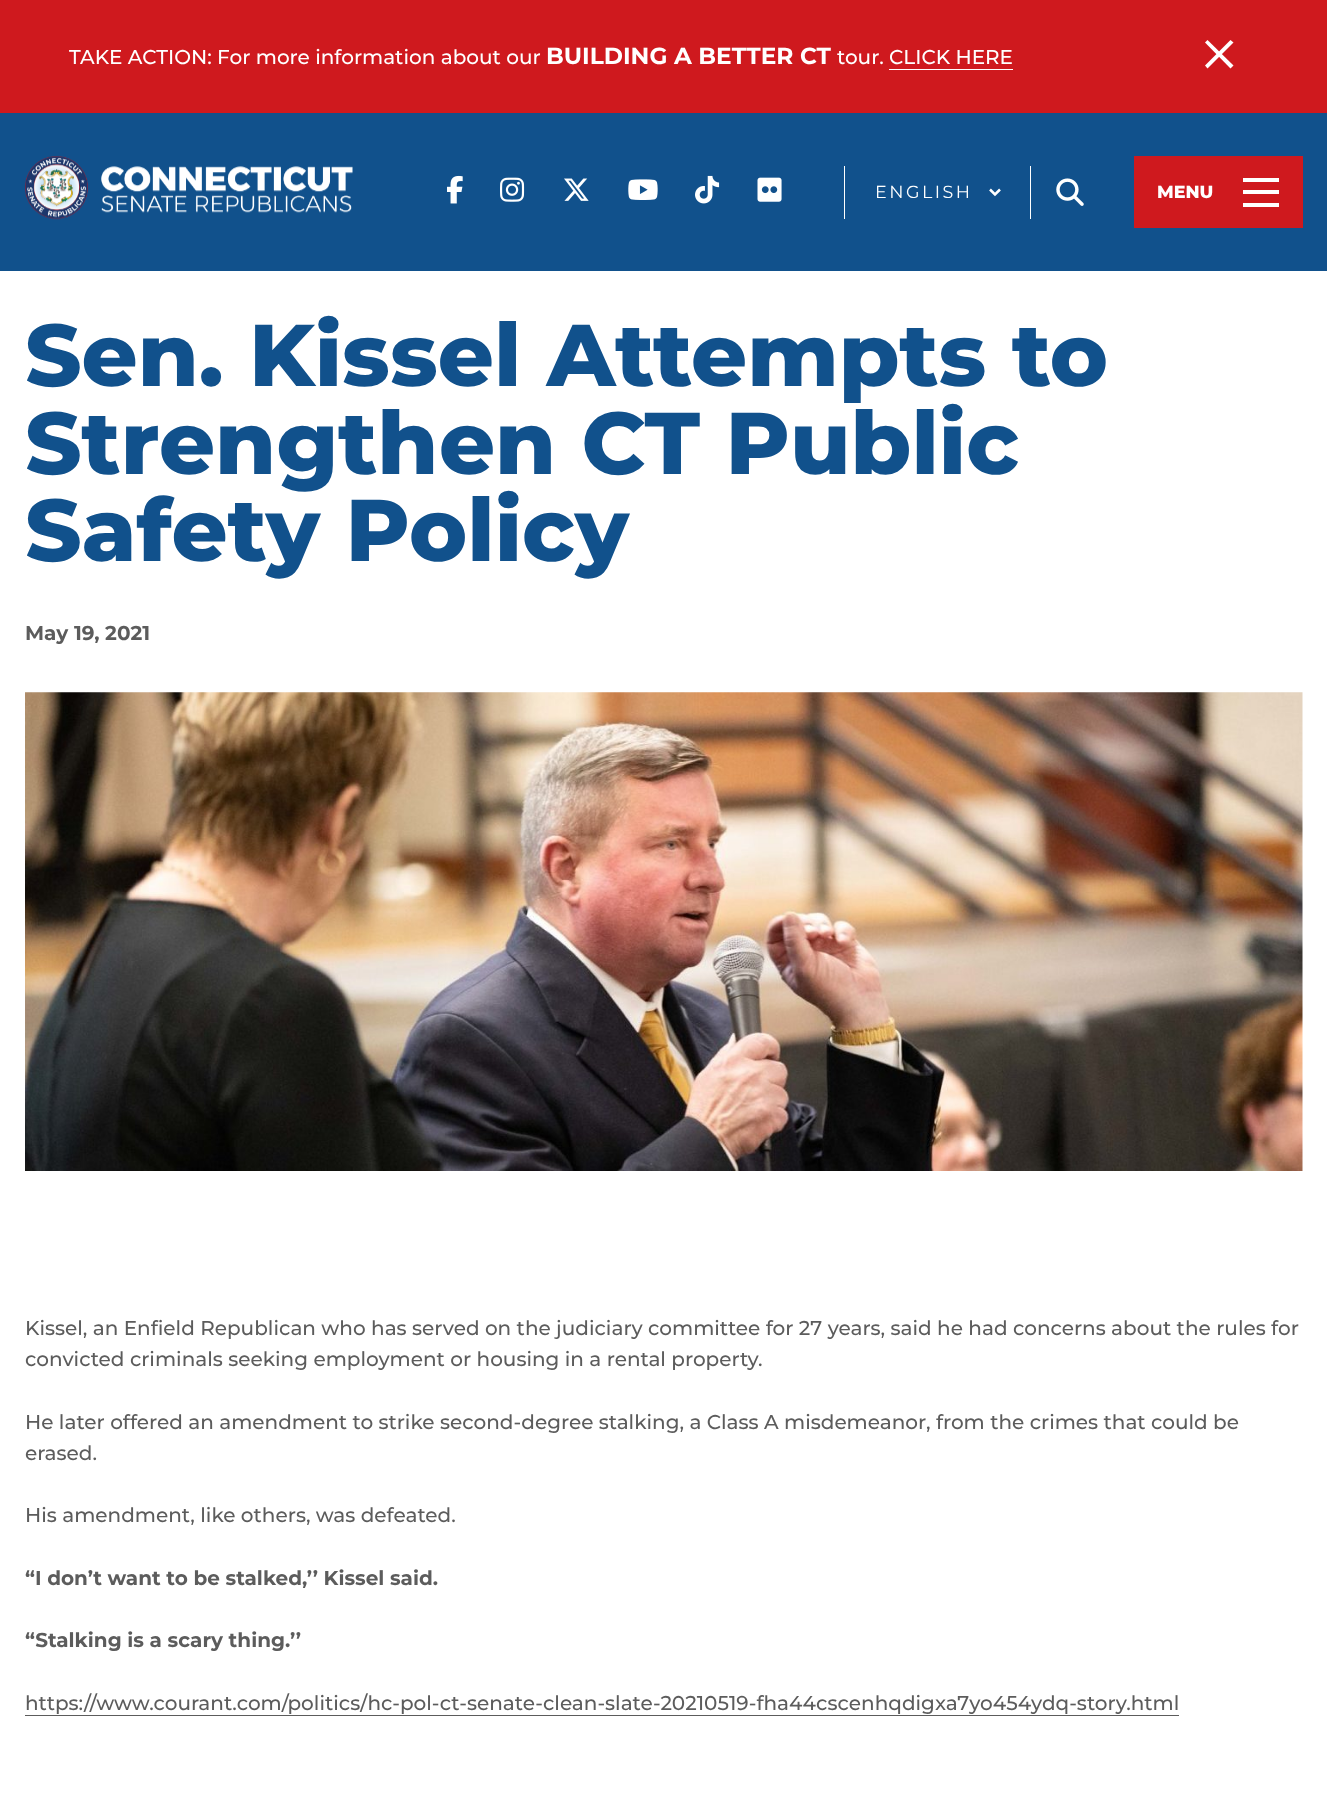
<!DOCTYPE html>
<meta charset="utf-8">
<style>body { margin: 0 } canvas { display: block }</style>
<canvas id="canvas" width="1327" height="1794"></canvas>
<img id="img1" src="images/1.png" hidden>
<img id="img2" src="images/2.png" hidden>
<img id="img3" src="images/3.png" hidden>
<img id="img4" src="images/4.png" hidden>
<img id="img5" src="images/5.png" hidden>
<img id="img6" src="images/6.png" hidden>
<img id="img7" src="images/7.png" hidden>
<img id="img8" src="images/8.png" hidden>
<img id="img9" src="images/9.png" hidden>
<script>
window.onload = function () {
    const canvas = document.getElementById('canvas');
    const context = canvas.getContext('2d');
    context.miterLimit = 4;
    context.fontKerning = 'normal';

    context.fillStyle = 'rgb(255, 255, 255)';
    context.fillRect(0, 0, 1327, 1794);
    context.fillStyle = 'rgb(17, 81, 140)';
    context.fillRect(0, 113, 1327, 158);
    context.fillStyle = 'rgb(207, 25, 30)';
    context.fillRect(0, 0, 1327, 113);
    context.fillStyle = 'rgb(255, 255, 255)';
    context.fillRect(889, 69, 124, 1);
    context.beginPath();
    context.moveTo(1205, 65.5);
    context.lineTo(1230.5, 40);
    context.lineTo(1233.5, 42.5);
    context.lineTo(1207.5, 68.5);
    context.closePath();
    context.fill();
    context.beginPath();
    context.moveTo(1207.5, 40);
    context.lineTo(1233.5, 65.5);
    context.lineTo(1230.5, 68.5);
    context.lineTo(1205, 42.5);
    context.closePath();
    context.fill();
    context.drawImage(document.getElementById('img1'), 25, 156, 328, 64);
    context.fillRect(844, 166, 1, 53);
    context.drawImage(document.getElementById('img2'), 447, 175, 16, 29);
    context.drawImage(document.getElementById('img3'), 500, 177, 25, 25);
    context.drawImage(document.getElementById('img4'), 564, 178, 25, 23);
    context.drawImage(document.getElementById('img5'), 628, 179, 30, 21);
    context.drawImage(document.getElementById('img6'), 695, 175, 25, 29);
    context.drawImage(document.getElementById('img7'), 757, 177, 25, 25);
    context.beginPath();
    context.moveTo(990, 189.5);
    context.lineTo(995, 194.5);
    context.lineTo(1000, 189.5);
    context.strokeStyle = 'rgb(255, 255, 255)';
    context.lineWidth = 2.5;
    context.stroke();
    context.fillRect(1030, 166, 1, 53);
    context.drawImage(document.getElementById('img8'), 1056, 178, 28, 28);
    context.fillStyle = 'rgb(207, 25, 30)';
    context.fillRect(1134, 156, 169, 72);
    context.fillStyle = 'rgb(255, 255, 255)';
    context.fillRect(1243, 178, 36, 4);
    context.fillRect(1243, 190, 36, 4);
    context.fillRect(1243, 203, 36, 4);
    context.drawImage(document.getElementById('img9'), 25, 692, 1278, 479);
    context.fillStyle = 'rgb(92, 92, 92)';
    context.fillRect(25, 1715, 1154, 1);
    context.font = '500 20px Montserrat';
    context.fillStyle = 'rgb(255, 255, 255)';
    context.fillText('TAKE ACTION: For more information about our', 69, 64);
    context.font = 'bold 23.25px Montserrat';
    context.fillText('BUILDING A BETTER CT', 546, 64);
    context.font = '500 20px Montserrat';
    context.fillText('tour. CLICK HERE', 837, 64);
    context.letterSpacing = '2.5px';
    context.font = '17.5px Montserrat';
    context.fillText('ENGLISH', 875, 198);
    context.letterSpacing = '0px';
    context.font = '800 17.5px Montserrat';
    context.fillText('MENU', 1157, 198);
    context.font = '800 87.5px Montserrat';
    context.fillStyle = 'rgb(17, 81, 140)';
    context.fillText('Sen. Kissel Attempts to', 25, 386);
    context.fillText('Strengthen CT Public', 25, 474);
    context.fillText('Safety Policy', 25, 561);
    context.font = 'bold 20px Montserrat';
    context.fillStyle = 'rgb(92, 92, 92)';
    context.fillText('May 19, 2021', 25, 640);
    context.font = '500 20px Montserrat';
    context.fillText('Kissel, an Enfield Republican who has served on the judiciary committee for 27 years, said he had concerns about the rules for', 25, 1335);
    context.fillText('convicted criminals seeking employment or housing in a rental property.', 25, 1366);
    context.fillText('He later offered an amendment to strike second-degree stalking, a Class A misdemeanor, from the crimes that could be', 25, 1429);
    context.fillText('erased.', 25, 1460);
    context.fillText('His amendment, like others, was defeated.', 25, 1522);
    context.font = 'bold 20px Montserrat';
    context.fillText('“I don’t want to be stalked,’’ Kissel said.', 25, 1585);
    context.fillText('“Stalking is a scary thing.’’', 25, 1647);
    context.font = '500 20px Montserrat';
    context.fillText('https://www.courant.com/politics/hc-pol-ct-senate-clean-slate-20210519-fha44cscenhqdigxa7yo454ydq-story.html', 25, 1710);
};
</script>
